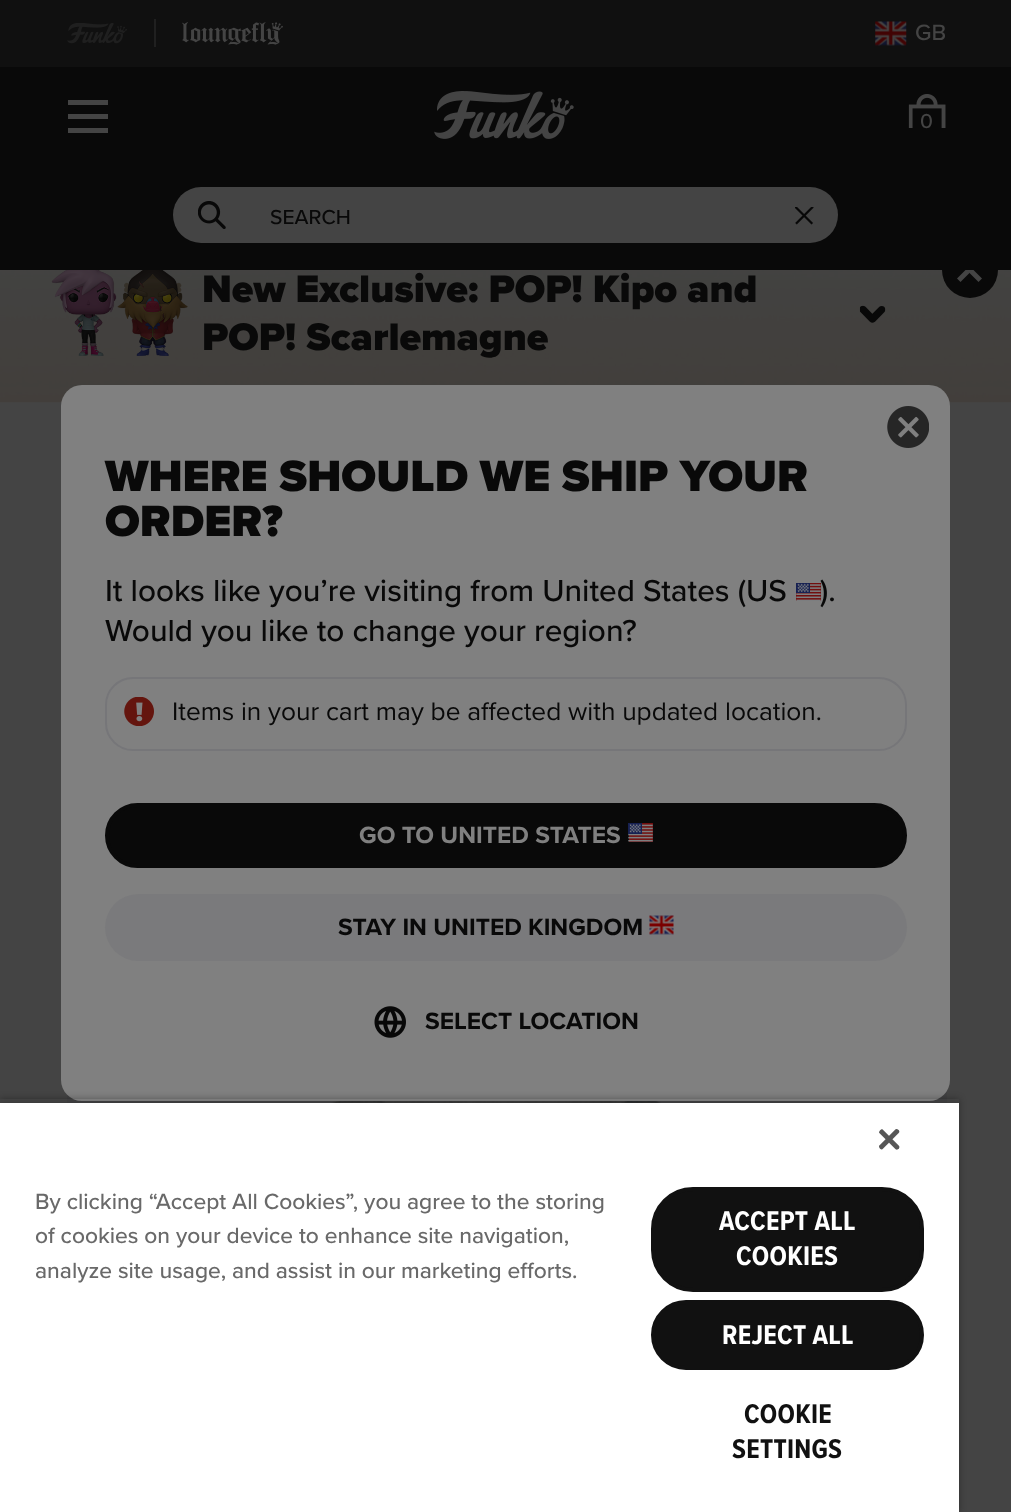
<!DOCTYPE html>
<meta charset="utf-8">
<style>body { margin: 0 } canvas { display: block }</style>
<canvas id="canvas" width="1011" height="1512"></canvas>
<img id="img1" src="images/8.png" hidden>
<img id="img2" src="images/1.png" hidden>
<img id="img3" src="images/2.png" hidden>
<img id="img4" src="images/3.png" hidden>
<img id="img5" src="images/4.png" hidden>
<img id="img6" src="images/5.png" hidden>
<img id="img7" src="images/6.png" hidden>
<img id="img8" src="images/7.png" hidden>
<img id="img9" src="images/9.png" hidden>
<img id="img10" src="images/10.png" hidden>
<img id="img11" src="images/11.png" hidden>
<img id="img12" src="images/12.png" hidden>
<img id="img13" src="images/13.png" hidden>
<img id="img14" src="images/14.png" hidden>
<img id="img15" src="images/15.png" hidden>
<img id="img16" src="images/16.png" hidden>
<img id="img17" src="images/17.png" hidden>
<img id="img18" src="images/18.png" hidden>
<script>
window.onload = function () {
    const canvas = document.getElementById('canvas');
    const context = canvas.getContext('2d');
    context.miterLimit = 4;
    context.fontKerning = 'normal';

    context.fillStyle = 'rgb(68, 68, 68)';
    context.fillRect(0, 0, 1011, 1512);
    context.drawImage(document.getElementById('img1'), 0, 270, 1011, 133);
    context.fillStyle = 'rgb(9, 9, 9)';
    context.beginPath();
    context.arc(970, 270, 28, 0, 2 * Math.PI);
    context.fill();
    context.fillStyle = 'rgb(68, 68, 68)';
    context.beginPath();
    context.moveTo(978.5, 257);
    context.lineTo(982, 260.5);
    context.lineTo(960.5, 282);
    context.lineTo(957, 278.5);
    context.closePath();
    context.fill();
    context.beginPath();
    context.moveTo(957, 260.5);
    context.lineTo(960.5, 257);
    context.lineTo(982, 278.5);
    context.lineTo(978.5, 282);
    context.closePath();
    context.fill();
    context.fillStyle = 'rgb(9, 9, 9)';
    context.fillRect(0, 67, 1011, 203);
    context.fillStyle = 'rgb(16, 16, 16)';
    context.fillRect(0, 0, 1011, 67);
    context.drawImage(document.getElementById('img2'), 67, 23, 60, 21);
    context.fillStyle = 'rgb(32, 32, 32)';
    context.fillRect(154, 19, 2, 28);
    context.drawImage(document.getElementById('img3'), 182, 22, 101, 23);
    context.drawImage(document.getElementById('img4'), 875, 21, 32, 25);
    context.fillStyle = 'rgb(68, 68, 68)';
    context.beginPath();
    context.moveTo(68, 100);
    context.lineTo(108, 100);
    context.lineTo(108, 105);
    context.lineTo(68, 105);
    context.closePath();
    context.moveTo(68, 114);
    context.lineTo(108, 114);
    context.lineTo(108, 119);
    context.lineTo(68, 119);
    context.closePath();
    context.moveTo(68, 128);
    context.lineTo(108, 128);
    context.lineTo(108, 133);
    context.lineTo(68, 133);
    context.closePath();
    context.fill();
    context.drawImage(document.getElementById('img5'), 434, 91, 140, 48);
    context.drawImage(document.getElementById('img6'), 908, 94, 38, 34);
    context.beginPath();
    context.roundRect(173, 187, 665, 56, 28);
    context.fill();
    context.drawImage(document.getElementById('img7'), 198, 201, 28, 28);
    context.drawImage(document.getElementById('img8'), 795, 207, 19, 18);
    context.drawImage(document.getElementById('img9'), 51, 270, 137, 86);
    context.drawImage(document.getElementById('img10'), 859, 305, 27, 18);
    context.fillStyle = 'rgb(65, 65, 66)';
    context.fillRect(67, 1090, 880, 13);
    context.drawImage(document.getElementById('img11'), 331, 1101, 330, 2);
    context.fillStyle = 'rgb(128, 128, 128)';
    context.beginPath();
    context.roundRect(61, 385, 889, 716, 21);
    context.fill();
    context.drawImage(document.getElementById('img12'), 887, 406, 42, 42);
    context.drawImage(document.getElementById('img13'), 796, 583, 25, 18);
    context.beginPath();
    context.roundRect(106, 678, 800, 72, 27);
    context.strokeStyle = 'rgb(118, 118, 121)';
    context.lineWidth = 2;
    context.stroke();
    context.drawImage(document.getElementById('img14'), 124, 697, 30, 29);
    context.fillStyle = 'rgb(9, 9, 9)';
    context.beginPath();
    context.roundRect(107, 805, 798, 61, 30.5);
    context.fill();
    context.strokeStyle = 'rgb(9, 9, 9)';
    context.lineWidth = 4;
    context.stroke();
    context.drawImage(document.getElementById('img15'), 628, 823, 25, 19);
    context.fillStyle = 'rgb(122, 122, 124)';
    context.beginPath();
    context.roundRect(105, 894, 802, 67, 33.5);
    context.fill();
    context.drawImage(document.getElementById('img16'), 649, 915, 25, 20);
    context.drawImage(document.getElementById('img17'), 374, 1006, 32, 32);
    context.save();
    context.beginPath();
    context.moveTo(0, 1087);
    context.lineTo(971, 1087);
    context.lineTo(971, 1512);
    context.lineTo(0, 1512);
    context.closePath();
    context.moveTo(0, 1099);
    context.lineTo(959, 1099);
    context.lineTo(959, 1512);
    context.lineTo(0, 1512);
    context.closePath();
    context.clip('evenodd');
    context.fillStyle = 'rgba(0, 0, 0, 0.35)';
    context.filter = 'blur(3.5px)';
    context.beginPath();
    context.rect(0, 1099, 959, 413);
    context.fill();
    context.filter = 'none';
    context.restore();
    context.save();
    context.beginPath();
    context.rect(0, 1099, 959, 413);
    context.clip();
    context.fillStyle = 'rgba(0, 0, 0, 0.2)';
    context.filter = 'blur(3.5px)';
    context.beginPath();
    context.rect(0, 1103, 959, 409);
    context.fill();
    context.filter = 'none';
    context.restore();
    context.fillStyle = 'rgb(255, 255, 255)';
    context.fillRect(0, 1103, 959, 409);
    context.drawImage(document.getElementById('img18'), 879, 1129, 21, 21);
    context.fillStyle = 'rgb(17, 17, 17)';
    context.beginPath();
    context.roundRect(653, 1189, 269, 101, 40);
    context.fill();
    context.strokeStyle = 'rgb(17, 17, 17)';
    context.stroke();
    context.beginPath();
    context.roundRect(653, 1302, 269, 66, 33);
    context.fill();
    context.stroke();
    context.font = '500 23px Proxima Nova';
    context.fillStyle = 'rgb(68, 68, 68)';
    context.fillText('GB', 915, 40);
    context.font = '500 21px Proxima Nova';
    context.fillText('0', 920, 128);
    context.fillStyle = 'rgb(9, 9, 9)';
    context.fillText('SEARCH', 270, 224);
    context.font = '900 39.75px Proxima Nova';
    context.fillText('New Exclusive: POP! Kipo and', 202, 302);
    context.fillText('POP! Scarlemagne', 202, 350);
    context.font = '900 45.5px Proxima Nova';
    context.fillText('WHERE SHOULD WE SHIP YOUR', 105, 491);
    context.fillText('ORDER?', 105, 536);
    context.font = '500 31.5px Proxima Nova';
    context.fillText('It looks like you’re visiting from United States (US', 105, 601);
    context.fillText(').', 820, 601);
    context.fillText('Would you like to change your region?', 105, 641);
    context.font = '26.25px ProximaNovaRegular';
    context.fillText('Items in your cart may be affected with updated location.', 172, 720);
    context.font = 'bold 24.5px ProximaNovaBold';
    context.fillStyle = 'rgb(128, 128, 128)';
    context.fillText('GO TO UNITED STATES', 359, 843);
    context.fillStyle = 'rgb(9, 9, 9)';
    context.fillText('STAY IN UNITED KINGDOM', 338, 935);
    context.fillText('SELECT LOCATION', 425, 1029);
    context.font = '500 22.75px Proxima Nova';
    context.fillStyle = 'rgb(105, 105, 105)';
    context.fillText('By clicking “Accept All Cookies”, you agree to the storing', 35, 1209);
    context.fillText('of cookies on your device to enhance site navigation,', 35, 1243);
    context.fillText('analyze site usage, and assist in our marketing efforts.', 35, 1278);
    context.letterSpacing = '0.25px';
    context.font = 'bold 28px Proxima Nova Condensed';
    context.fillStyle = 'rgb(255, 255, 255)';
    context.fillText('ACCEPT ALL', 719, 1230);
    context.fillText('COOKIES', 736, 1265);
    context.fillText('REJECT ALL', 722, 1344);
    context.fillStyle = 'rgb(17, 17, 17)';
    context.fillText('COOKIE', 744, 1423);
    context.fillText('SETTINGS', 732, 1458);
};
</script>
